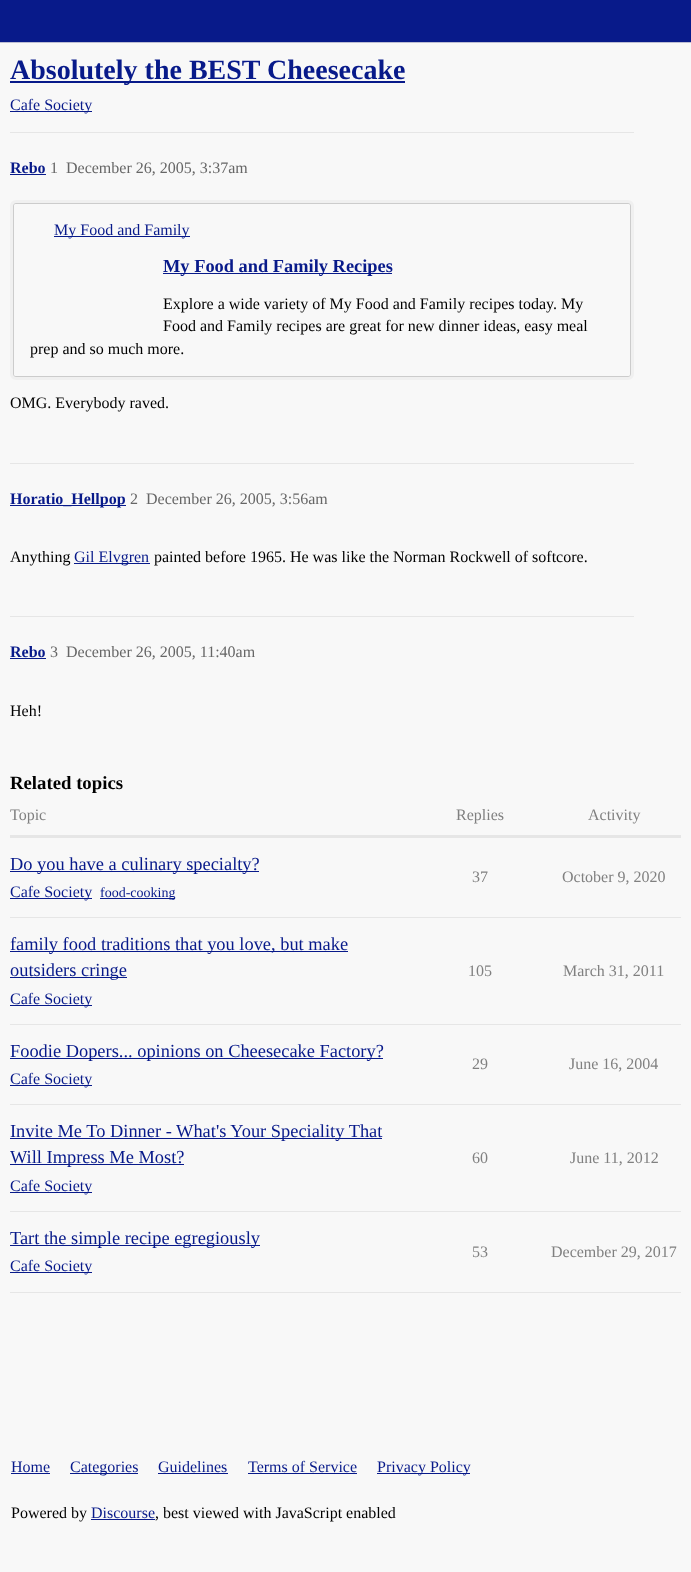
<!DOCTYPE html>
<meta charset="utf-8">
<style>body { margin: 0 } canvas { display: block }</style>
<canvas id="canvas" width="691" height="1572"></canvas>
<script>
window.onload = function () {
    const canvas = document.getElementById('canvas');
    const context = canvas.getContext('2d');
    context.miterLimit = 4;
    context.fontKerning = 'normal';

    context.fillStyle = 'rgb(248, 248, 248)';
    context.fillRect(0, 0, 691, 1572);
    context.fillStyle = 'rgb(8, 26, 138)';
    context.fillRect(0, 0, 691, 42);
    context.fillStyle = 'rgb(189, 190, 211)';
    context.fillRect(0, 42, 691, 1);
    context.fillStyle = 'rgb(8, 26, 138)';
    context.fillRect(10, 81, 395, 2);
    context.fillRect(10, 111, 82, 1);
    context.fillStyle = 'rgb(230, 230, 230)';
    context.fillRect(10, 132, 624, 1);
    context.fillStyle = 'rgb(8, 26, 138)';
    context.fillRect(10, 174, 36, 1);
    context.beginPath();
    context.roundRect(12, 202, 620, 176, 4);
    context.strokeStyle = 'rgb(240, 240, 240)';
    context.lineWidth = 4;
    context.stroke();
    context.beginPath();
    context.roundRect(13.5, 203.5, 617, 173, 2.5);
    context.strokeStyle = 'rgb(204, 204, 204)';
    context.lineWidth = 1;
    context.stroke();
    context.fillStyle = 'rgb(248, 248, 248)';
    context.beginPath();
    context.roundRect(14, 204, 616, 172, 2);
    context.fill();
    context.fillStyle = 'rgb(8, 26, 138)';
    context.fillRect(54, 236, 136, 1);
    context.fillRect(163, 273, 229, 1);
    context.fillStyle = 'rgb(230, 230, 230)';
    context.fillRect(10, 463, 624, 1);
    context.fillStyle = 'rgb(8, 26, 138)';
    context.fillRect(10, 505, 116, 1);
    context.fillRect(74, 563, 76, 1);
    context.fillStyle = 'rgb(230, 230, 230)';
    context.fillRect(10, 616, 624, 1);
    context.fillStyle = 'rgb(8, 26, 138)';
    context.fillRect(10, 658, 36, 1);
    context.fillStyle = 'rgb(230, 230, 230)';
    context.fillRect(10, 835, 671, 3);
    context.fillRect(10, 917, 671, 1);
    context.fillStyle = 'rgb(8, 26, 138)';
    context.fillRect(10, 871, 249, 1);
    context.fillRect(10, 898, 82, 1);
    context.fillRect(100, 898, 75, 1);
    context.fillStyle = 'rgb(230, 230, 230)';
    context.fillRect(10, 1024, 671, 1);
    context.fillStyle = 'rgb(8, 26, 138)';
    context.fillRect(10, 951, 338, 1);
    context.fillRect(10, 977, 117, 1);
    context.fillRect(10, 1005, 82, 1);
    context.fillStyle = 'rgb(230, 230, 230)';
    context.fillRect(10, 1104, 671, 1);
    context.fillStyle = 'rgb(8, 26, 138)';
    context.fillRect(10, 1058, 373, 1);
    context.fillRect(10, 1085, 82, 1);
    context.fillStyle = 'rgb(230, 230, 230)';
    context.fillRect(10, 1211, 671, 1);
    context.fillStyle = 'rgb(8, 26, 138)';
    context.fillRect(10, 1138, 372, 1);
    context.fillRect(10, 1164, 174, 1);
    context.fillRect(10, 1192, 82, 1);
    context.fillStyle = 'rgb(230, 230, 230)';
    context.fillRect(10, 1292, 671, 1);
    context.fillStyle = 'rgb(8, 26, 138)';
    context.fillRect(10, 1245, 250, 1);
    context.fillRect(10, 1272, 82, 1);
    context.fillRect(11, 1473, 39, 1);
    context.fillRect(70, 1473, 68, 1);
    context.fillRect(158, 1473, 70, 1);
    context.fillRect(248, 1473, 109, 1);
    context.fillRect(377, 1473, 93, 1);
    context.fillRect(91, 1519, 64, 1);
    context.font = 'bold 28px Liberation Serif';
    context.fillText('Absolutely the BEST Cheesecake', 10, 79);
    context.font = '16px Liberation Serif';
    context.fillText('Cafe Society', 10, 110);
    context.font = 'bold 16px Liberation Serif';
    context.fillText('Rebo', 10, 173);
    context.font = '16px Liberation Serif';
    context.fillStyle = 'rgb(102, 102, 102)';
    context.fillText('1', 50, 173);
    context.fillText('December 26, 2005, 3:37am', 66, 173);
    context.fillStyle = 'rgb(8, 26, 138)';
    context.fillText('My Food and Family', 54, 235);
    context.font = 'bold 18.4px Liberation Serif';
    context.fillText('My Food and Family Recipes', 163, 272);
    context.font = '16px Liberation Serif';
    context.fillStyle = 'rgb(0, 0, 0)';
    context.fillText('Explore a wide variety of My Food and Family recipes today. My', 163, 309);
    context.fillText('Food and Family recipes are great for new dinner ideas, easy meal', 163, 331);
    context.fillText('prep and so much more.', 30, 354);
    context.fillText('OMG. Everybody raved.', 10, 408);
    context.font = 'bold 16px Liberation Serif';
    context.fillStyle = 'rgb(8, 26, 138)';
    context.fillText('Horatio_Hellpop', 10, 504);
    context.font = '16px Liberation Serif';
    context.fillStyle = 'rgb(102, 102, 102)';
    context.fillText('2', 130, 504);
    context.fillText('December 26, 2005, 3:56am', 146, 504);
    context.fillStyle = 'rgb(0, 0, 0)';
    context.fillText('Anything', 10, 562);
    context.fillStyle = 'rgb(8, 26, 138)';
    context.fillText('Gil Elvgren', 74, 562);
    context.fillStyle = 'rgb(0, 0, 0)';
    context.fillText('painted before 1965. He was like the Norman Rockwell of softcore.', 154, 562);
    context.font = 'bold 16px Liberation Serif';
    context.fillStyle = 'rgb(8, 26, 138)';
    context.fillText('Rebo', 10, 657);
    context.font = '16px Liberation Serif';
    context.fillStyle = 'rgb(102, 102, 102)';
    context.fillText('3', 50, 657);
    context.fillText('December 26, 2005, 11:40am', 66, 657);
    context.fillStyle = 'rgb(0, 0, 0)';
    context.fillText('Heh!', 10, 716);
    context.font = 'bold 18.75px Liberation Serif';
    context.fillText('Related topics', 10, 789);
    context.font = '16px Liberation Serif';
    context.fillStyle = 'rgb(128, 128, 128)';
    context.fillText('Topic', 10, 820);
    context.fillText('Replies', 456, 820);
    context.fillText('Activity', 588, 820);
    context.font = '18.4px Liberation Serif';
    context.fillStyle = 'rgb(8, 26, 138)';
    context.fillText('Do you have a culinary specialty?', 10, 870);
    context.font = '16px Liberation Serif';
    context.fillText('Cafe Society', 10, 897);
    context.font = '14px Liberation Serif';
    context.fillText('food-cooking', 100, 897);
    context.font = '16px Liberation Serif';
    context.fillStyle = 'rgb(128, 128, 128)';
    context.fillText('37', 472, 882);
    context.fillText('October 9, 2020', 562, 882);
    context.font = '18.4px Liberation Serif';
    context.fillStyle = 'rgb(8, 26, 138)';
    context.fillText('family food traditions that you love, but make', 10, 950);
    context.fillText('outsiders cringe', 10, 976);
    context.font = '16px Liberation Serif';
    context.fillText('Cafe Society', 10, 1004);
    context.fillStyle = 'rgb(128, 128, 128)';
    context.fillText('105', 468, 976);
    context.fillText('March 31, 2011', 563, 976);
    context.font = '18.4px Liberation Serif';
    context.fillStyle = 'rgb(8, 26, 138)';
    context.fillText('Foodie Dopers... opinions on Cheesecake Factory?', 10, 1057);
    context.font = '16px Liberation Serif';
    context.fillText('Cafe Society', 10, 1084);
    context.fillStyle = 'rgb(128, 128, 128)';
    context.fillText('29', 472, 1069);
    context.fillText('June 16, 2004', 569, 1069);
    context.font = '18.4px Liberation Serif';
    context.fillStyle = 'rgb(8, 26, 138)';
    context.fillText('Invite Me To Dinner - What\'s Your Speciality That', 10, 1137);
    context.fillText('Will Impress Me Most?', 10, 1163);
    context.font = '16px Liberation Serif';
    context.fillText('Cafe Society', 10, 1191);
    context.fillStyle = 'rgb(128, 128, 128)';
    context.fillText('60', 472, 1163);
    context.fillText('June 11, 2012', 570, 1163);
    context.font = '18.4px Liberation Serif';
    context.fillStyle = 'rgb(8, 26, 138)';
    context.fillText('Tart the simple recipe egregiously', 10, 1244);
    context.font = '16px Liberation Serif';
    context.fillText('Cafe Society', 10, 1271);
    context.fillStyle = 'rgb(128, 128, 128)';
    context.fillText('53', 472, 1257);
    context.fillText('December 29, 2017', 551, 1257);
    context.fillStyle = 'rgb(8, 26, 138)';
    context.fillText('Home', 11, 1472);
    context.fillText('Categories', 70, 1472);
    context.fillText('Guidelines', 158, 1472);
    context.fillText('Terms of Service', 248, 1472);
    context.fillText('Privacy Policy', 377, 1472);
    context.fillStyle = 'rgb(0, 0, 0)';
    context.fillText('Powered by', 11, 1518);
    context.fillStyle = 'rgb(8, 26, 138)';
    context.fillText('Discourse', 91, 1518);
    context.fillStyle = 'rgb(0, 0, 0)';
    context.fillText(', best viewed with JavaScript enabled', 155, 1518);
};
</script>
